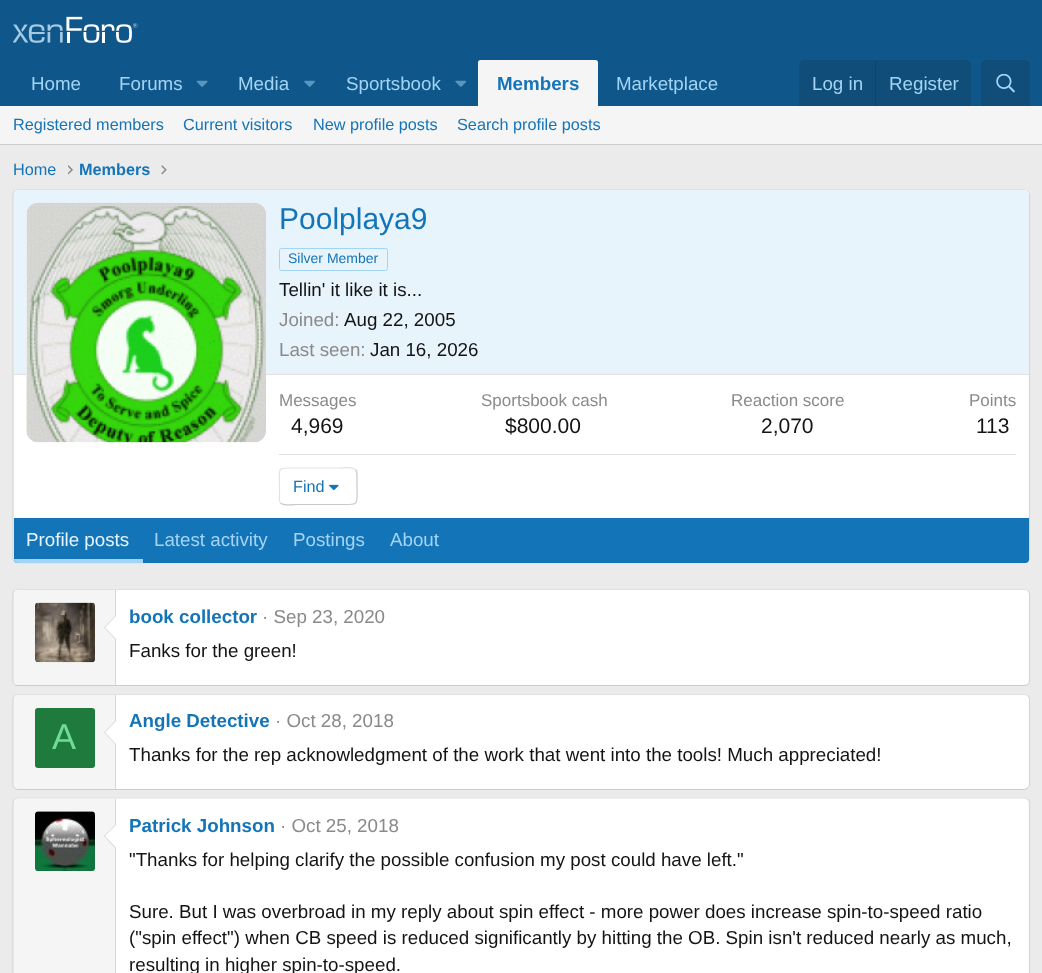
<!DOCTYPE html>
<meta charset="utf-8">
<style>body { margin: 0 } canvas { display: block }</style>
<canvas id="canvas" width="1042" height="973"></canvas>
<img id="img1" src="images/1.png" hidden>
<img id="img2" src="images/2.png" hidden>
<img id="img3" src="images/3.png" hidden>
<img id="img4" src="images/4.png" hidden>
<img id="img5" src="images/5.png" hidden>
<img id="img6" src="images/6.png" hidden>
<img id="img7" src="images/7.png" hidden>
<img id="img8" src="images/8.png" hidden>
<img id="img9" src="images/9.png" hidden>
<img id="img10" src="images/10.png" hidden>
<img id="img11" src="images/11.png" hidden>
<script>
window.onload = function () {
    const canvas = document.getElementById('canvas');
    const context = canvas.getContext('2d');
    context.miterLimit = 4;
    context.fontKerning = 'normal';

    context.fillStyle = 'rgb(235, 235, 235)';
    context.fillRect(0, 0, 1042, 973);
    context.fillStyle = 'rgb(15, 87, 138)';
    context.fillRect(0, 0, 1042, 106);
    context.drawImage(document.getElementById('img1'), 13, 16, 125, 27);
    context.drawImage(document.getElementById('img2'), 196, 80, 12, 7);
    context.drawImage(document.getElementById('img3'), 304, 80, 11, 7);
    context.drawImage(document.getElementById('img4'), 455, 80, 11, 7);
    context.fillStyle = 'rgb(245, 245, 245)';
    context.beginPath();
    context.roundRect(478, 60, 120, 46, [2.5, 2.5, 0, 0]);
    context.fill();
    context.fillStyle = 'rgb(16, 77, 120)';
    context.beginPath();
    context.roundRect(799, 60, 172, 46, [5, 5, 0, 0]);
    context.fill();
    context.fillStyle = 'rgb(17, 68, 105)';
    context.fillRect(875, 60, 1, 46);
    context.fillStyle = 'rgb(16, 77, 120)';
    context.beginPath();
    context.roundRect(981, 60, 49, 46, [5, 5, 0, 0]);
    context.fill();
    context.drawImage(document.getElementById('img5'), 996, 74, 19, 19);
    context.fillStyle = 'rgb(245, 245, 245)';
    context.fillRect(0, 106, 1042, 38);
    context.fillStyle = 'rgb(204, 204, 204)';
    context.fillRect(0, 144, 1042, 1);
    context.drawImage(document.getElementById('img6'), 68, 165, 5, 10);
    context.drawImage(document.getElementById('img7'), 161, 165, 6, 10);
    context.fillStyle = 'rgb(255, 255, 255)';
    context.beginPath();
    context.roundRect(13, 189, 1017, 375, 5);
    context.fill();
    context.beginPath();
    context.moveTo(14.5, 190.5);
    context.lineTo(17.5, 189.5);
    context.lineTo(1025, 189.5);
    context.lineTo(1028, 190.5);
    context.strokeStyle = 'rgb(224, 224, 224)';
    context.lineWidth = 1.2;
    context.stroke();
    context.beginPath();
    context.moveTo(1028, 190.5);
    context.lineTo(1029.5, 194);
    context.lineTo(1029.5, 559);
    context.lineTo(1028, 562);
    context.strokeStyle = 'rgb(214, 214, 214)';
    context.stroke();
    context.beginPath();
    context.moveTo(1028, 562);
    context.lineTo(1025, 563);
    context.lineTo(17.5, 563);
    context.lineTo(14.5, 562);
    context.strokeStyle = 'rgb(204, 204, 204)';
    context.stroke();
    context.beginPath();
    context.moveTo(14.5, 562);
    context.lineTo(13, 559);
    context.lineTo(13, 194);
    context.lineTo(14.5, 190.5);
    context.strokeStyle = 'rgb(214, 214, 214)';
    context.stroke();
    context.fillStyle = 'rgb(232, 244, 252)';
    context.beginPath();
    context.roundRect(14, 190, 1015, 185, [4, 4, 0, 0]);
    context.fill();
    context.fillStyle = 'rgb(224, 224, 224)';
    context.fillRect(14, 374, 1015, 1);
    context.fillStyle = 'rgb(255, 255, 255)';
    context.beginPath();
    context.roundRect(26, 203, 240, 240, 13);
    context.fill();
    context.drawImage(document.getElementById('img8'), 26, 202, 240, 241);
    context.beginPath();
    context.roundRect(279.5, 248.5, 108, 22, 2);
    context.strokeStyle = 'rgb(163, 212, 245)';
    context.lineWidth = 1;
    context.stroke();
    context.fillStyle = 'rgb(224, 224, 224)';
    context.fillRect(279, 454, 737, 1);
    context.beginPath();
    context.moveTo(355.5, 469.5);
    context.bezierCurveTo(357.5, 471.5, 357, 474.5, 357, 477);
    context.lineTo(357, 486);
    context.bezierCurveTo(357, 505.5, 360, 504.5, 341, 504.5);
    context.lineTo(295, 504.5);
    context.bezierCurveTo(294.5, 504.5, 284, 506, 280.5, 503);
    context.strokeStyle = 'rgb(201, 201, 201)';
    context.lineWidth = 1.2;
    context.stroke();
    context.beginPath();
    context.moveTo(280.5, 503);
    context.bezierCurveTo(278.5, 501, 279.5, 498, 279.5, 495.5);
    context.lineTo(279.5, 486);
    context.bezierCurveTo(279.5, 467, 276, 468, 295, 468);
    context.lineTo(341, 468);
    context.bezierCurveTo(341.5, 468, 352.5, 466.5, 355.5, 469.5);
    context.strokeStyle = 'rgb(227, 227, 227)';
    context.stroke();
    context.drawImage(document.getElementById('img9'), 329, 484, 10, 7);
    context.fillStyle = 'rgb(20, 116, 184)';
    context.beginPath();
    context.roundRect(14, 518, 1015, 45, [0, 0, 4, 4]);
    context.fill();
    context.fillStyle = 'rgb(163, 212, 245)';
    context.beginPath();
    context.roundRect(14, 559, 129, 4, [0, 0, 0, 4]);
    context.fill();
    context.fillStyle = 'rgb(255, 255, 255)';
    context.beginPath();
    context.roundRect(13, 589, 1017, 97, 5);
    context.fill();
    context.beginPath();
    context.moveTo(14.5, 590.5);
    context.lineTo(17.5, 589.5);
    context.lineTo(1025, 589.5);
    context.lineTo(1028, 590.5);
    context.strokeStyle = 'rgb(224, 224, 224)';
    context.stroke();
    context.beginPath();
    context.moveTo(1028, 590.5);
    context.bezierCurveTo(1029, 591.5, 1029.5, 592.5, 1029.5, 594);
    context.lineTo(1029.5, 681);
    context.bezierCurveTo(1029.5, 682.5, 1029, 683.5, 1028, 684.5);
    context.strokeStyle = 'rgb(214, 214, 214)';
    context.stroke();
    context.beginPath();
    context.moveTo(1028, 684.5);
    context.lineTo(1025, 685.5);
    context.lineTo(17.5, 685.5);
    context.lineTo(14.5, 684.5);
    context.strokeStyle = 'rgb(204, 204, 204)';
    context.stroke();
    context.beginPath();
    context.moveTo(14.5, 684.5);
    context.bezierCurveTo(13.5, 683.5, 13, 682.5, 13, 681);
    context.lineTo(13, 594);
    context.bezierCurveTo(13, 592.5, 13.5, 591.5, 14.5, 590.5);
    context.strokeStyle = 'rgb(214, 214, 214)';
    context.stroke();
    context.fillStyle = 'rgb(245, 245, 245)';
    context.beginPath();
    context.roundRect(14, 590, 102, 95, [4, 0, 0, 4]);
    context.fill();
    context.fillStyle = 'rgb(214, 214, 214)';
    context.fillRect(115, 590, 1, 95);
    context.fillStyle = 'rgb(255, 255, 255)';
    context.beginPath();
    context.roundRect(35, 603, 60, 60, 3);
    context.fill();
    context.drawImage(document.getElementById('img10'), 35, 602, 60, 61);
    context.fillStyle = 'rgb(214, 214, 214)';
    context.beginPath();
    context.moveTo(116, 615);
    context.lineTo(116, 640);
    context.lineTo(104, 627.5);
    context.closePath();
    context.fill();
    context.fillStyle = 'rgb(255, 255, 255)';
    context.beginPath();
    context.moveTo(116, 616);
    context.lineTo(116, 639);
    context.lineTo(105, 627.5);
    context.closePath();
    context.fill();
    context.beginPath();
    context.roundRect(13, 694, 1017, 96, 5);
    context.fill();
    context.beginPath();
    context.moveTo(14.5, 695.5);
    context.lineTo(17.5, 694.5);
    context.lineTo(1025, 694.5);
    context.lineTo(1028, 695.5);
    context.strokeStyle = 'rgb(224, 224, 224)';
    context.stroke();
    context.beginPath();
    context.moveTo(1028, 695.5);
    context.lineTo(1029.5, 698.5);
    context.lineTo(1029.5, 785.5);
    context.lineTo(1028, 788);
    context.strokeStyle = 'rgb(214, 214, 214)';
    context.stroke();
    context.beginPath();
    context.moveTo(1028, 788);
    context.lineTo(1025, 789.5);
    context.lineTo(17.5, 789.5);
    context.lineTo(14.5, 788);
    context.strokeStyle = 'rgb(204, 204, 204)';
    context.stroke();
    context.beginPath();
    context.moveTo(14.5, 788);
    context.lineTo(13, 785.5);
    context.lineTo(13, 698.5);
    context.lineTo(14.5, 695.5);
    context.strokeStyle = 'rgb(214, 214, 214)';
    context.stroke();
    context.fillStyle = 'rgb(245, 245, 245)';
    context.beginPath();
    context.roundRect(14, 695, 102, 94, [4, 0, 0, 4]);
    context.fill();
    context.fillStyle = 'rgb(214, 214, 214)';
    context.fillRect(115, 695, 1, 94);
    context.fillStyle = 'rgb(31, 122, 61)';
    context.beginPath();
    context.roundRect(35, 708, 60, 60, 3);
    context.fill();
    context.fillStyle = 'rgb(214, 214, 214)';
    context.beginPath();
    context.moveTo(116, 720);
    context.lineTo(116, 745);
    context.lineTo(104, 732.5);
    context.closePath();
    context.fill();
    context.fillStyle = 'rgb(255, 255, 255)';
    context.beginPath();
    context.moveTo(116, 721);
    context.lineTo(116, 744);
    context.lineTo(105, 732.5);
    context.closePath();
    context.fill();
    context.beginPath();
    context.roundRect(13, 798, 1017, 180, 5);
    context.fill();
    context.beginPath();
    context.moveTo(14.5, 799.5);
    context.lineTo(17.5, 798);
    context.lineTo(1025, 798);
    context.lineTo(1028, 799.5);
    context.strokeStyle = 'rgb(224, 224, 224)';
    context.stroke();
    context.beginPath();
    context.moveTo(1028, 799.5);
    context.bezierCurveTo(1029, 800, 1029.5, 801.5, 1029.5, 802.5);
    context.lineTo(1029.5, 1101);
    context.bezierCurveTo(1029.5, 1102.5, 1029, 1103.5, 1028, 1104.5);
    context.strokeStyle = 'rgb(214, 214, 214)';
    context.stroke();
    context.beginPath();
    context.moveTo(14.5, 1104.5);
    context.bezierCurveTo(13.5, 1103.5, 13, 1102.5, 13, 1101);
    context.lineTo(13, 802.5);
    context.bezierCurveTo(13, 801.5, 13.5, 800, 14.5, 799.5);
    context.stroke();
    context.fillStyle = 'rgb(245, 245, 245)';
    context.beginPath();
    context.moveTo(18, 799);
    context.lineTo(116, 799);
    context.lineTo(116, 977);
    context.lineTo(18, 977);
    context.bezierCurveTo(16, 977, 14, 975, 14, 973);
    context.lineTo(14, 803);
    context.bezierCurveTo(14, 801, 16, 799, 18, 799);
    context.closePath();
    context.fill();
    context.fillStyle = 'rgb(214, 214, 214)';
    context.fillRect(115, 799, 1, 174);
    context.fillStyle = 'rgb(255, 255, 255)';
    context.beginPath();
    context.roundRect(35, 811, 60, 60, 3);
    context.fill();
    context.drawImage(document.getElementById('img11'), 35, 811, 60, 60);
    context.fillStyle = 'rgb(214, 214, 214)';
    context.beginPath();
    context.moveTo(116, 824);
    context.lineTo(116, 849);
    context.lineTo(104, 836);
    context.closePath();
    context.fill();
    context.fillStyle = 'rgb(255, 255, 255)';
    context.beginPath();
    context.moveTo(116, 825);
    context.lineTo(116, 847.5);
    context.lineTo(105, 836);
    context.closePath();
    context.fill();
    context.font = '18.75px Liberation Sans';
    context.fillStyle = 'rgb(163, 212, 245)';
    context.fillText('Home', 31, 90);
    context.fillText('Forums', 119, 90);
    context.fillText('Media', 238, 90);
    context.fillText('Sportsbook', 346, 90);
    context.font = 'bold 18.75px Liberation Sans';
    context.fillStyle = 'rgb(20, 116, 184)';
    context.fillText('Members', 497, 90);
    context.font = '18.75px Liberation Sans';
    context.fillStyle = 'rgb(163, 212, 245)';
    context.fillText('Marketplace', 616, 90);
    context.fillText('Log in', 812, 90);
    context.fillText('Register', 889, 90);
    context.font = '16.25px Liberation Sans';
    context.fillStyle = 'rgb(20, 116, 184)';
    context.fillText('Registered members', 13, 130);
    context.fillText('Current visitors', 183, 130);
    context.fillText('New profile posts', 313, 130);
    context.fillText('Search profile posts', 457, 130);
    context.fillText('Home', 13, 175);
    context.font = 'bold 16.25px Liberation Sans';
    context.fillText('Members', 79, 175);
    context.font = '30px Liberation Sans';
    context.fillText('Poolplaya9', 279, 229);
    context.font = '14px Liberation Sans';
    context.fillText('Silver Member', 288, 263);
    context.font = '18.75px Liberation Sans';
    context.fillStyle = 'rgb(20, 20, 20)';
    context.fillText('Tellin\' it like it is...', 279, 296);
    context.fillStyle = 'rgb(138, 138, 138)';
    context.fillText('Joined:', 279, 326);
    context.fillStyle = 'rgb(20, 20, 20)';
    context.fillText('Aug 22, 2005', 344, 326);
    context.fillStyle = 'rgb(138, 138, 138)';
    context.fillText('Last seen:', 279, 356);
    context.fillStyle = 'rgb(20, 20, 20)';
    context.fillText('Jan 16, 2026', 370, 356);
    context.font = '17px Liberation Sans';
    context.fillStyle = 'rgb(138, 138, 138)';
    context.fillText('Messages', 279, 406);
    context.font = '21px Liberation Sans';
    context.fillStyle = 'rgb(20, 20, 20)';
    context.fillText('4,969', 291, 433);
    context.font = '17px Liberation Sans';
    context.fillStyle = 'rgb(138, 138, 138)';
    context.fillText('Sportsbook cash', 481, 406);
    context.font = '21px Liberation Sans';
    context.fillStyle = 'rgb(20, 20, 20)';
    context.fillText('$800.00', 505, 433);
    context.font = '17px Liberation Sans';
    context.fillStyle = 'rgb(138, 138, 138)';
    context.fillText('Reaction score', 731, 406);
    context.font = '21px Liberation Sans';
    context.fillStyle = 'rgb(20, 20, 20)';
    context.fillText('2,070', 761, 433);
    context.font = '17px Liberation Sans';
    context.fillStyle = 'rgb(138, 138, 138)';
    context.fillText('Points', 969, 406);
    context.font = '21px Liberation Sans';
    context.fillStyle = 'rgb(20, 20, 20)';
    context.fillText('113', 976, 433);
    context.font = '16.25px Liberation Sans';
    context.fillStyle = 'rgb(20, 116, 184)';
    context.fillText('Find', 293, 492);
    context.font = '18.75px Liberation Sans';
    context.fillStyle = 'rgb(232, 244, 252)';
    context.fillText('Profile posts', 26, 546);
    context.fillStyle = 'rgb(163, 212, 245)';
    context.fillText('Latest activity', 154, 546);
    context.fillText('Postings', 293, 546);
    context.fillText('About', 390, 546);
    context.font = 'bold 18.75px Liberation Sans';
    context.fillStyle = 'rgb(20, 116, 184)';
    context.fillText('book collector', 129, 623);
    context.font = '18.75px Liberation Sans';
    context.fillStyle = 'rgb(138, 138, 138)';
    context.fillText('· Sep 23, 2020', 262, 623);
    context.fillStyle = 'rgb(20, 20, 20)';
    context.fillText('Fanks for the green!', 129, 657);
    context.font = '36px Liberation Sans';
    context.fillStyle = 'rgb(112, 219, 148)';
    context.fillText('A', 52, 749);
    context.font = 'bold 18.75px Liberation Sans';
    context.fillStyle = 'rgb(20, 116, 184)';
    context.fillText('Angle Detective', 129, 727);
    context.font = '18.75px Liberation Sans';
    context.fillStyle = 'rgb(138, 138, 138)';
    context.fillText('· Oct 28, 2018', 275, 727);
    context.fillStyle = 'rgb(20, 20, 20)';
    context.fillText('Thanks for the rep acknowledgment of the work that went into the tools! Much appreciated!', 129, 761);
    context.font = 'bold 18.75px Liberation Sans';
    context.fillStyle = 'rgb(20, 116, 184)';
    context.fillText('Patrick Johnson', 129, 832);
    context.font = '18.75px Liberation Sans';
    context.fillStyle = 'rgb(138, 138, 138)';
    context.fillText('· Oct 25, 2018', 280, 832);
    context.fillStyle = 'rgb(20, 20, 20)';
    context.fillText('"Thanks for helping clarify the possible confusion my post could have left."', 129, 866);
    context.fillText('Sure. But I was overbroad in my reply about spin effect - more power does increase spin-to-speed ratio', 129, 918);
    context.fillText('("spin effect") when CB speed is reduced significantly by hitting the OB. Spin isn\'t reduced nearly as much,', 129, 944);
    context.fillText('resulting in higher spin-to-speed.', 129, 971);
};
</script>
